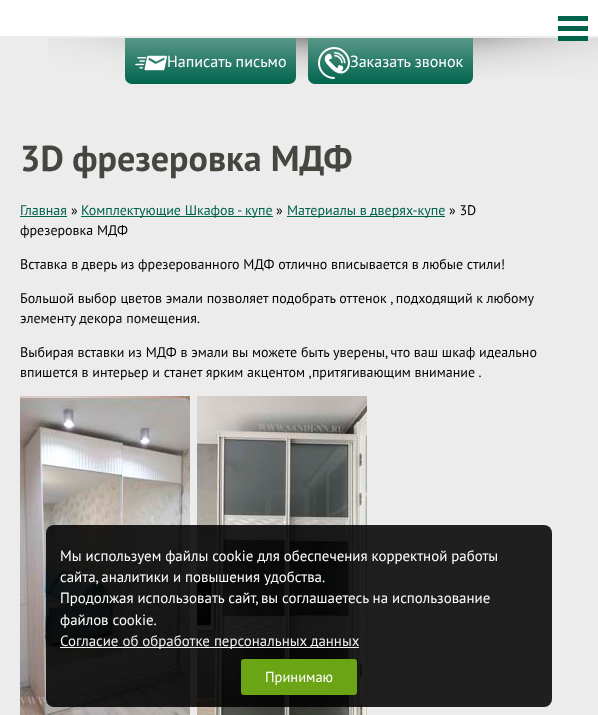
<!DOCTYPE html>
<meta charset="utf-8">
<style>body { margin: 0 } canvas { display: block }</style>
<canvas id="canvas" width="598" height="715"></canvas>
<img id="img1" src="images/1.png" hidden>
<img id="img2" src="images/2.png" hidden>
<img id="img3" src="images/3.png" hidden>
<img id="img4" src="images/4.png" hidden>
<img id="img5" src="images/5.png" hidden>
<script>
window.onload = function () {
    const canvas = document.getElementById('canvas');
    const context = canvas.getContext('2d');
    context.miterLimit = 4;
    context.fontKerning = 'normal';
    let gradient;

    context.fillStyle = 'rgb(255, 255, 255)';
    context.fillRect(0, 0, 598, 715);
    context.fillStyle = 'rgb(0, 100, 76)';
    context.fillRect(558, 26, 30, 5);
    context.fillRect(558, 16, 30, 5);
    context.fillStyle = 'rgb(236, 236, 236)';
    context.fillRect(0, 36, 598, 679);
    context.drawImage(document.getElementById('img1'), 48, 38, 550, 39);
    context.fillStyle = 'rgb(0, 100, 76)';
    context.fillRect(558, 36, 30, 5);
    gradient = context.createLinearGradient(211, 84, 211, 38);
    gradient.addColorStop(0, 'rgb(0, 100, 76)');
    gradient.addColorStop(1, 'rgb(89, 151, 137)');
    context.fillStyle = gradient;
    context.beginPath();
    context.roundRect(125, 38, 171, 46, [0, 0, 7, 7]);
    context.fill();
    context.drawImage(document.getElementById('img2'), 135, 55, 32, 16);
    gradient = context.createLinearGradient(391, 84, 391, 38);
    gradient.addColorStop(0, 'rgb(0, 100, 76)');
    gradient.addColorStop(1, 'rgb(89, 151, 137)');
    context.fillStyle = gradient;
    context.beginPath();
    context.roundRect(308, 38, 165, 46, [0, 0, 7, 7]);
    context.fill();
    context.drawImage(document.getElementById('img3'), 318, 47, 32, 32);
    context.fillStyle = 'rgb(0, 100, 76)';
    context.fillRect(20, 216, 47, 1);
    context.fillRect(81, 216, 192, 1);
    context.fillRect(287, 216, 158, 1);
    context.drawImage(document.getElementById('img4'), 20, 396, 170, 319);
    context.drawImage(document.getElementById('img5'), 197, 396, 170, 319);
    context.fillStyle = 'rgba(0, 0, 0, 0.87)';
    context.beginPath();
    context.roundRect(46, 525, 506, 182, 8);
    context.fill();
    context.fillStyle = 'rgb(241, 241, 241)';
    context.fillRect(60, 647, 299, 1);
    context.fillStyle = 'rgb(107, 164, 20)';
    context.beginPath();
    context.roundRect(241, 659, 116, 36, 3);
    context.fill();
    context.font = '16px PT Sans';
    context.fillStyle = 'rgb(255, 255, 255)';
    context.fillText('Написать письмо', 167, 67);
    context.fillText('Заказать звонок', 350, 67);
    context.font = 'bold 36px PT Sans';
    context.fillStyle = 'rgb(70, 70, 65)';
    context.fillText('3D фрезеровка МДФ', 20, 171);
    context.font = '14px PT Sans';
    context.fillStyle = 'rgb(0, 100, 76)';
    context.fillText('Главная', 20, 215);
    context.fillStyle = 'rgb(0, 0, 0)';
    context.fillText('»', 71, 215);
    context.fillStyle = 'rgb(0, 100, 76)';
    context.fillText('Комплектующие Шкафов - купе', 81, 215);
    context.fillStyle = 'rgb(0, 0, 0)';
    context.fillText('»', 276, 215);
    context.fillStyle = 'rgb(0, 100, 76)';
    context.fillText('Материалы в дверях-купе', 287, 215);
    context.fillStyle = 'rgb(0, 0, 0)';
    context.fillText('» 3D', 449, 215);
    context.fillText('фрезеровка МДФ', 20, 235);
    context.fillText('Вставка в дверь из фрезерованного МДФ отлично вписывается в любые стили!', 20, 269);
    context.fillText('Большой выбор цветов эмали позволяет подобрать оттенок , подходящий к любому', 20, 303);
    context.fillText('элементу декора помещения.', 20, 323);
    context.fillText('Выбирая вставки из МДФ в эмали вы можете быть уверены, что ваш шкаф идеально', 20, 357);
    context.fillText('впишется в интерьер и станет ярким акцентом ,притягивающим внимание .', 20, 377);
    context.font = '14.9px PT Sans';
    context.fillStyle = 'rgb(255, 255, 255)';
    context.fillText('Мы используем файлы cookie для обеспечения корректной работы', 60, 561);
    context.fillText('сайта, аналитики и повышения удобства.', 60, 582);
    context.fillText('Продолжая использовать сайт, вы соглашаетесь на использование', 60, 603);
    context.fillText('файлов cookie.', 60, 625);
    context.fillStyle = 'rgb(241, 241, 241)';
    context.fillText('Согласие об обработке персональных данных', 60, 646);
    context.font = '14.5px PT Sans';
    context.fillStyle = 'rgb(255, 255, 255)';
    context.fillText('Принимаю', 265, 682);
};
</script>
